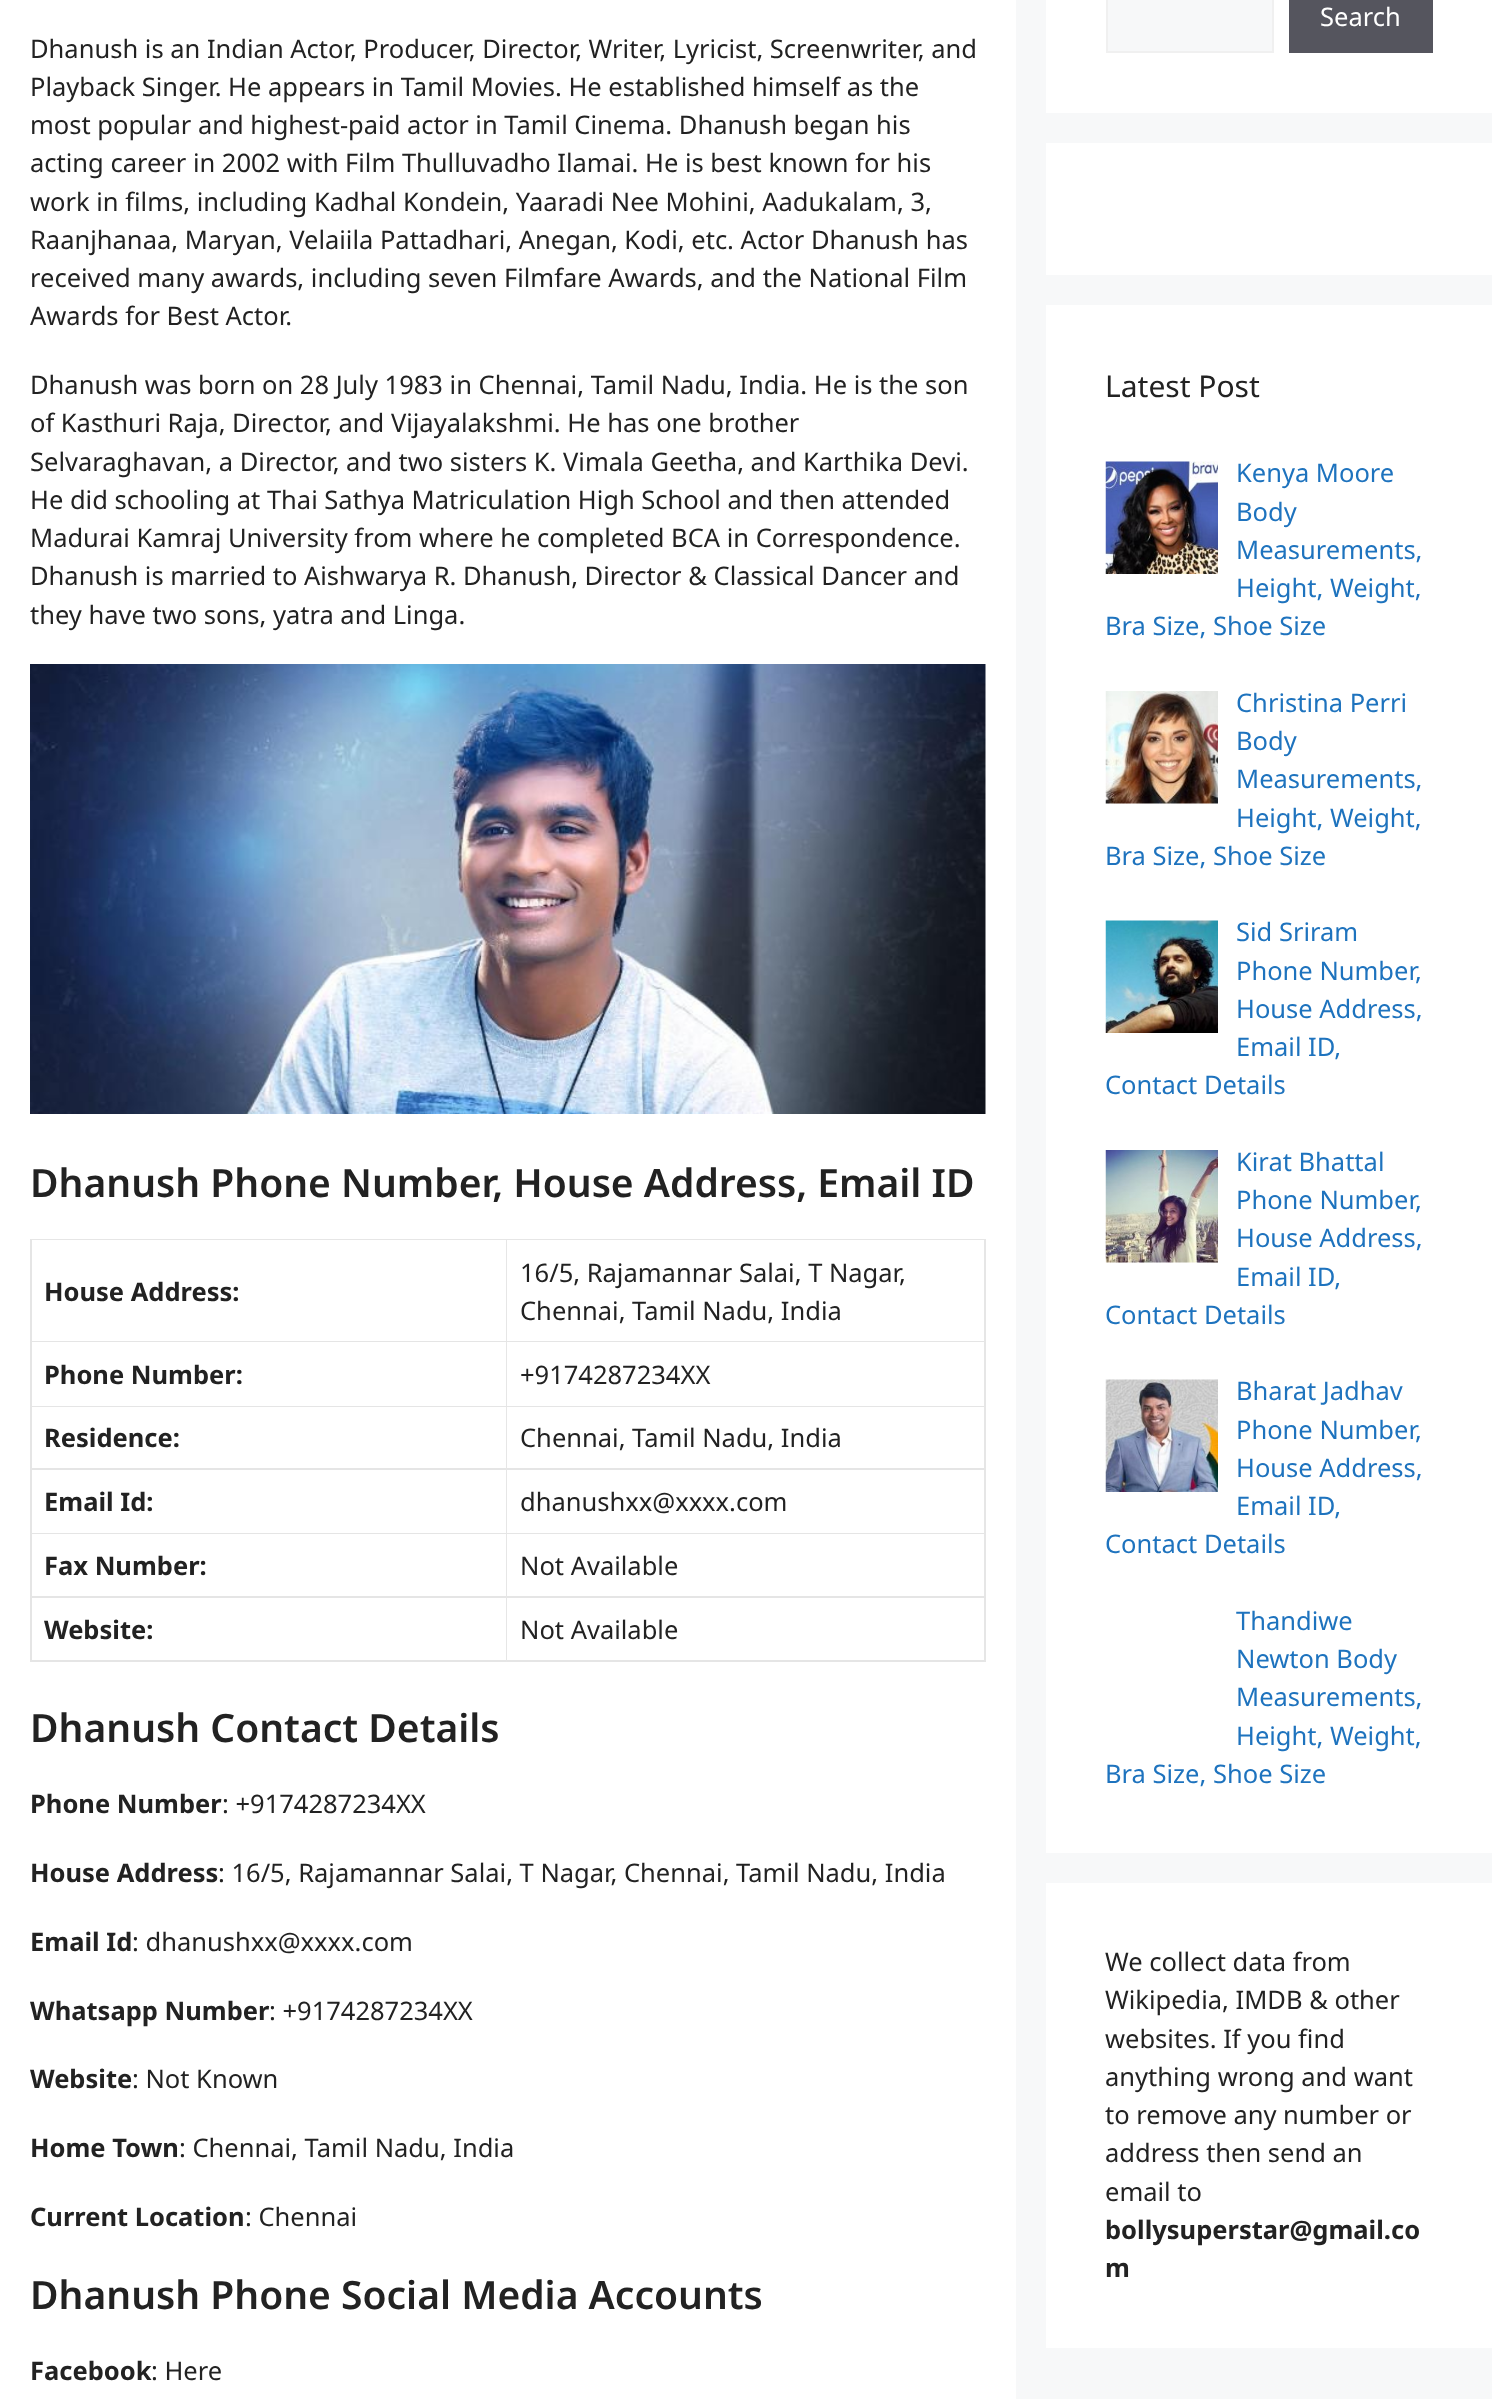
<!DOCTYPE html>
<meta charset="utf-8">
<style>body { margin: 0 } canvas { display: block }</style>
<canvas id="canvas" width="1492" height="2399"></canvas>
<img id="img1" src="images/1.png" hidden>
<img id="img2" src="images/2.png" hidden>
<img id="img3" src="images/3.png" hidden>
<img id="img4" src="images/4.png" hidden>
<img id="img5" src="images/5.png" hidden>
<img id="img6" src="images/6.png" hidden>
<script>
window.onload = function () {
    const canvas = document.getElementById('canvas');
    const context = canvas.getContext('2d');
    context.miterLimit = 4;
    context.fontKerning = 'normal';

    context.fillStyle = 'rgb(247, 248, 249)';
    context.fillRect(0, 0, 1492, 2399);
    context.fillStyle = 'rgb(255, 255, 255)';
    context.fillRect(0, 0, 1016, 2399);
    context.drawImage(document.getElementById('img1'), 30, 664, 956, 450);
    context.fillStyle = 'rgb(230, 230, 230)';
    context.beginPath();
    context.moveTo(30, 1239);
    context.lineTo(986, 1239);
    context.lineTo(986, 1240);
    context.lineTo(32, 1240);
    context.closePath();
    context.fill();
    context.fillStyle = 'rgba(0, 0, 0, 0.1)';
    context.beginPath();
    context.moveTo(30, 1662);
    context.lineTo(30, 1239);
    context.lineTo(32, 1240);
    context.lineTo(32, 1662);
    context.closePath();
    context.fill();
    context.fillStyle = 'rgb(230, 230, 230)';
    context.beginPath();
    context.moveTo(507, 1240);
    context.lineTo(507, 1342);
    context.lineTo(506, 1341);
    context.lineTo(506, 1240);
    context.closePath();
    context.fill();
    context.fillStyle = 'rgba(0, 0, 0, 0.1)';
    context.beginPath();
    context.moveTo(507, 1342);
    context.lineTo(32, 1342);
    context.lineTo(32, 1341);
    context.lineTo(506, 1341);
    context.closePath();
    context.fill();
    context.fillStyle = 'rgb(230, 230, 230)';
    context.beginPath();
    context.moveTo(986, 1240);
    context.lineTo(986, 1342);
    context.lineTo(984, 1341);
    context.lineTo(984, 1240);
    context.closePath();
    context.fill();
    context.fillStyle = 'rgba(0, 0, 0, 0.1)';
    context.beginPath();
    context.moveTo(986, 1342);
    context.lineTo(507, 1342);
    context.lineTo(507, 1341);
    context.lineTo(984, 1341);
    context.closePath();
    context.fill();
    context.fillStyle = 'rgb(230, 230, 230)';
    context.beginPath();
    context.moveTo(507, 1342);
    context.lineTo(507, 1407);
    context.lineTo(506, 1406);
    context.lineTo(506, 1342);
    context.closePath();
    context.fill();
    context.fillStyle = 'rgba(0, 0, 0, 0.1)';
    context.beginPath();
    context.moveTo(507, 1407);
    context.lineTo(32, 1407);
    context.lineTo(32, 1406);
    context.lineTo(506, 1406);
    context.closePath();
    context.fill();
    context.fillStyle = 'rgb(230, 230, 230)';
    context.beginPath();
    context.moveTo(986, 1342);
    context.lineTo(986, 1407);
    context.lineTo(984, 1406);
    context.lineTo(984, 1342);
    context.closePath();
    context.fill();
    context.fillStyle = 'rgba(0, 0, 0, 0.1)';
    context.beginPath();
    context.moveTo(986, 1407);
    context.lineTo(507, 1407);
    context.lineTo(507, 1406);
    context.lineTo(984, 1406);
    context.closePath();
    context.fill();
    context.fillStyle = 'rgb(230, 230, 230)';
    context.beginPath();
    context.moveTo(507, 1407);
    context.lineTo(507, 1470);
    context.lineTo(506, 1468);
    context.lineTo(506, 1407);
    context.closePath();
    context.fill();
    context.fillStyle = 'rgba(0, 0, 0, 0.1)';
    context.beginPath();
    context.moveTo(507, 1470);
    context.lineTo(32, 1470);
    context.lineTo(32, 1468);
    context.lineTo(506, 1468);
    context.closePath();
    context.fill();
    context.fillStyle = 'rgb(230, 230, 230)';
    context.beginPath();
    context.moveTo(986, 1407);
    context.lineTo(986, 1470);
    context.lineTo(984, 1468);
    context.lineTo(984, 1407);
    context.closePath();
    context.fill();
    context.fillStyle = 'rgba(0, 0, 0, 0.1)';
    context.beginPath();
    context.moveTo(986, 1470);
    context.lineTo(507, 1470);
    context.lineTo(507, 1468);
    context.lineTo(984, 1468);
    context.closePath();
    context.fill();
    context.fillStyle = 'rgb(230, 230, 230)';
    context.beginPath();
    context.moveTo(507, 1470);
    context.lineTo(507, 1534);
    context.lineTo(506, 1533);
    context.lineTo(506, 1470);
    context.closePath();
    context.fill();
    context.fillStyle = 'rgba(0, 0, 0, 0.1)';
    context.beginPath();
    context.moveTo(507, 1534);
    context.lineTo(32, 1534);
    context.lineTo(32, 1533);
    context.lineTo(506, 1533);
    context.closePath();
    context.fill();
    context.fillStyle = 'rgb(230, 230, 230)';
    context.beginPath();
    context.moveTo(986, 1470);
    context.lineTo(986, 1534);
    context.lineTo(984, 1533);
    context.lineTo(984, 1470);
    context.closePath();
    context.fill();
    context.fillStyle = 'rgba(0, 0, 0, 0.1)';
    context.beginPath();
    context.moveTo(986, 1534);
    context.lineTo(507, 1534);
    context.lineTo(507, 1533);
    context.lineTo(984, 1533);
    context.closePath();
    context.fill();
    context.fillStyle = 'rgb(230, 230, 230)';
    context.beginPath();
    context.moveTo(507, 1534);
    context.lineTo(507, 1598);
    context.lineTo(506, 1596);
    context.lineTo(506, 1534);
    context.closePath();
    context.fill();
    context.fillStyle = 'rgba(0, 0, 0, 0.1)';
    context.beginPath();
    context.moveTo(507, 1598);
    context.lineTo(32, 1598);
    context.lineTo(32, 1596);
    context.lineTo(506, 1596);
    context.closePath();
    context.fill();
    context.fillStyle = 'rgb(230, 230, 230)';
    context.beginPath();
    context.moveTo(986, 1534);
    context.lineTo(986, 1598);
    context.lineTo(984, 1596);
    context.lineTo(984, 1534);
    context.closePath();
    context.fill();
    context.fillStyle = 'rgba(0, 0, 0, 0.1)';
    context.beginPath();
    context.moveTo(986, 1598);
    context.lineTo(507, 1598);
    context.lineTo(507, 1596);
    context.lineTo(984, 1596);
    context.closePath();
    context.fill();
    context.fillStyle = 'rgb(230, 230, 230)';
    context.beginPath();
    context.moveTo(507, 1598);
    context.lineTo(507, 1662);
    context.lineTo(506, 1660);
    context.lineTo(506, 1598);
    context.closePath();
    context.fill();
    context.fillStyle = 'rgba(0, 0, 0, 0.1)';
    context.beginPath();
    context.moveTo(507, 1662);
    context.lineTo(32, 1662);
    context.lineTo(32, 1660);
    context.lineTo(506, 1660);
    context.closePath();
    context.fill();
    context.fillStyle = 'rgb(230, 230, 230)';
    context.beginPath();
    context.moveTo(986, 1598);
    context.lineTo(986, 1662);
    context.lineTo(984, 1660);
    context.lineTo(984, 1598);
    context.closePath();
    context.fill();
    context.fillStyle = 'rgba(0, 0, 0, 0.1)';
    context.beginPath();
    context.moveTo(986, 1662);
    context.lineTo(507, 1662);
    context.lineTo(507, 1660);
    context.lineTo(984, 1660);
    context.closePath();
    context.fill();
    context.fillStyle = 'rgb(255, 255, 255)';
    context.fillRect(1046, 0, 446, 113);
    context.fillStyle = 'rgb(247, 248, 249)';
    context.beginPath();
    context.rect(1107, -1, 166, 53);
    context.fill();
    context.strokeStyle = 'rgb(240, 240, 240)';
    context.lineWidth = 2;
    context.stroke();
    context.fillStyle = 'rgb(85, 85, 94)';
    context.fillRect(1289, 0, 144, 53);
    context.fillStyle = 'rgb(255, 255, 255)';
    context.fillRect(1046, 143, 446, 132);
    context.fillRect(1046, 305, 446, 1548);
    context.drawImage(document.getElementById('img2'), 1105, 461, 113, 113);
    context.drawImage(document.getElementById('img3'), 1105, 691, 113, 113);
    context.drawImage(document.getElementById('img4'), 1105, 920, 113, 113);
    context.drawImage(document.getElementById('img5'), 1105, 1150, 113, 113);
    context.drawImage(document.getElementById('img6'), 1105, 1379, 113, 113);
    context.fillRect(1046, 1883, 446, 465);
    context.font = '25.5px Noto Sans';
    context.fillStyle = 'rgb(34, 34, 34)';
    context.fillText('Dhanush is an Indian Actor, Producer, Director, Writer, Lyricist, Screenwriter, and', 30, 58);
    context.fillText('Playback Singer. He appears in Tamil Movies. He established himself as the', 30, 96);
    context.fillText('most popular and highest-paid actor in Tamil Cinema. Dhanush began his', 30, 134);
    context.fillText('acting career in 2002 with Film Thulluvadho Ilamai. He is best known for his', 30, 172);
    context.fillText('work in films, including Kadhal Kondein, Yaaradi Nee Mohini, Aadukalam, 3,', 30, 211);
    context.fillText('Raanjhanaa, Maryan, Velaiila Pattadhari, Anegan, Kodi, etc. Actor Dhanush has', 30, 249);
    context.fillText('received many awards, including seven Filmfare Awards, and the National Film', 30, 287);
    context.fillText('Awards for Best Actor.', 30, 325);
    context.fillText('Dhanush was born on 28 July 1983 in Chennai, Tamil Nadu, India. He is the son', 30, 394);
    context.fillText('of Kasthuri Raja, Director, and Vijayalakshmi. He has one brother', 30, 432);
    context.fillText('Selvaraghavan, a Director, and two sisters K. Vimala Geetha, and Karthika Devi.', 30, 471);
    context.fillText('He did schooling at Thai Sathya Matriculation High School and then attended', 30, 509);
    context.fillText('Madurai Kamraj University from where he completed BCA in Correspondence.', 30, 547);
    context.fillText('Dhanush is married to Aishwarya R. Dhanush, Director & Classical Dancer and', 30, 585);
    context.fillText('they have two sons, yatra and Linga.', 30, 624);
    context.font = '600 39px Noto Sans';
    context.fillText('Dhanush Phone Number, House Address, Email ID', 30, 1197);
    context.font = 'bold 25.5px Noto Sans';
    context.fillText('House Address:', 44, 1301);
    context.font = '25.5px Noto Sans';
    context.fillText('16/5, Rajamannar Salai, T Nagar,', 520, 1282);
    context.fillText('Chennai, Tamil Nadu, India', 520, 1320);
    context.font = 'bold 25.5px Noto Sans';
    context.fillText('Phone Number:', 44, 1384);
    context.font = '25.5px Noto Sans';
    context.fillText('+9174287234XX', 520, 1384);
    context.font = 'bold 25.5px Noto Sans';
    context.fillText('Residence:', 44, 1447);
    context.font = '25.5px Noto Sans';
    context.fillText('Chennai, Tamil Nadu, India', 520, 1447);
    context.font = 'bold 25.5px Noto Sans';
    context.fillText('Email Id:', 44, 1511);
    context.font = '25.5px Noto Sans';
    context.fillText('dhanushxx@xxxx.com', 520, 1511);
    context.font = 'bold 25.5px Noto Sans';
    context.fillText('Fax Number:', 44, 1575);
    context.font = '25.5px Noto Sans';
    context.fillText('Not Available', 520, 1575);
    context.font = 'bold 25.5px Noto Sans';
    context.fillText('Website:', 44, 1639);
    context.font = '25.5px Noto Sans';
    context.fillText('Not Available', 520, 1639);
    context.font = '600 39px Noto Sans';
    context.fillText('Dhanush Contact Details', 30, 1742);
    context.font = 'bold 25.5px Noto Sans';
    context.fillText('Phone Number', 30, 1813);
    context.font = '25.5px Noto Sans';
    context.fillText(': +9174287234XX', 222, 1813);
    context.font = 'bold 25.5px Noto Sans';
    context.fillText('House Address', 30, 1882);
    context.font = '25.5px Noto Sans';
    context.fillText(': 16/5, Rajamannar Salai, T Nagar, Chennai, Tamil Nadu, India', 218, 1882);
    context.font = 'bold 25.5px Noto Sans';
    context.fillText('Email Id', 30, 1951);
    context.font = '25.5px Noto Sans';
    context.fillText(': dhanushxx@xxxx.com', 132, 1951);
    context.font = 'bold 25.5px Noto Sans';
    context.fillText('Whatsapp Number', 30, 2020);
    context.font = '25.5px Noto Sans';
    context.fillText(': +9174287234XX', 269, 2020);
    context.font = 'bold 25.5px Noto Sans';
    context.fillText('Website', 30, 2088);
    context.font = '25.5px Noto Sans';
    context.fillText(': Not Known', 132, 2088);
    context.font = 'bold 25.5px Noto Sans';
    context.fillText('Home Town', 30, 2157);
    context.font = '25.5px Noto Sans';
    context.fillText(': Chennai, Tamil Nadu, India', 179, 2157);
    context.font = 'bold 25.5px Noto Sans';
    context.fillText('Current Location', 30, 2226);
    context.font = '25.5px Noto Sans';
    context.fillText(': Chennai', 245, 2226);
    context.font = '600 39px Noto Sans';
    context.fillText('Dhanush Phone Social Media Accounts', 30, 2309);
    context.font = 'bold 25.5px Noto Sans';
    context.fillText('Facebook', 30, 2380);
    context.font = '25.5px Noto Sans';
    context.fillText(': Here', 151, 2380);
    context.fillStyle = 'rgb(255, 255, 255)';
    context.fillText('Search', 1320, 26);
    context.font = '30px Noto Sans';
    context.fillStyle = 'rgb(34, 34, 34)';
    context.fillText('Latest Post', 1105, 397);
    context.font = '25.5px Noto Sans';
    context.fillStyle = 'rgb(30, 115, 190)';
    context.fillText('Kenya Moore', 1236, 482);
    context.fillText('Body', 1236, 521);
    context.fillText('Measurements,', 1236, 559);
    context.fillText('Height, Weight,', 1236, 597);
    context.fillText('Bra Size, Shoe Size', 1105, 635);
    context.fillText('Christina Perri', 1236, 712);
    context.fillText('Body', 1236, 750);
    context.fillText('Measurements,', 1236, 788);
    context.fillText('Height, Weight,', 1236, 827);
    context.fillText('Bra Size, Shoe Size', 1105, 865);
    context.fillText('Sid Sriram', 1236, 941);
    context.fillText('Phone Number,', 1236, 980);
    context.fillText('House Address,', 1236, 1018);
    context.fillText('Email ID,', 1236, 1056);
    context.fillText('Contact Details', 1105, 1094);
    context.fillText('Kirat Bhattal', 1236, 1171);
    context.fillText('Phone Number,', 1236, 1209);
    context.fillText('House Address,', 1236, 1247);
    context.fillText('Email ID,', 1236, 1286);
    context.fillText('Contact Details', 1105, 1324);
    context.fillText('Bharat Jadhav', 1236, 1400);
    context.fillText('Phone Number,', 1236, 1439);
    context.fillText('House Address,', 1236, 1477);
    context.fillText('Email ID,', 1236, 1515);
    context.fillText('Contact Details', 1105, 1553);
    context.fillText('Thandiwe', 1236, 1630);
    context.fillText('Newton Body', 1236, 1668);
    context.fillText('Measurements,', 1236, 1706);
    context.fillText('Height, Weight,', 1236, 1745);
    context.fillText('Bra Size, Shoe Size', 1105, 1783);
    context.fillStyle = 'rgb(34, 34, 34)';
    context.fillText('We collect data from', 1105, 1971);
    context.fillText('Wikipedia, IMDB & other', 1105, 2009);
    context.fillText('websites. If you find', 1105, 2048);
    context.fillText('anything wrong and want', 1105, 2086);
    context.fillText('to remove any number or', 1105, 2124);
    context.fillText('address then send an', 1105, 2162);
    context.fillText('email to', 1105, 2201);
    context.font = 'bold 25.5px Noto Sans';
    context.fillText('bollysuperstar@gmail.co', 1105, 2239);
    context.fillText('m', 1105, 2277);
};
</script>
